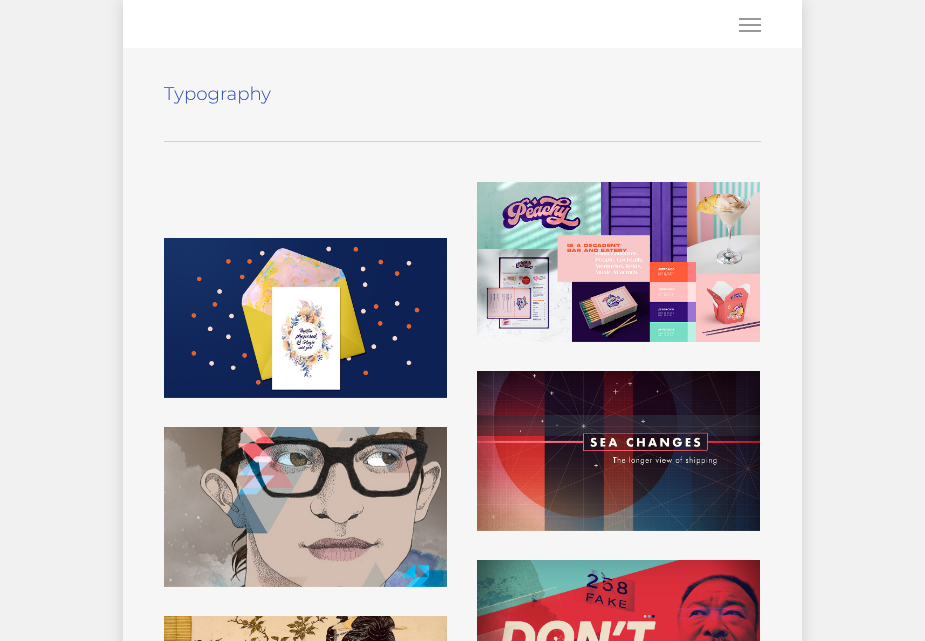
<!DOCTYPE html>
<meta charset="utf-8">
<style>body { margin: 0 } canvas { display: block }</style>
<canvas id="canvas" width="925" height="641"></canvas>
<img id="img1" src="images/1.png" hidden>
<img id="img2" src="images/2.png" hidden>
<img id="img3" src="images/3.png" hidden>
<img id="img4" src="images/4.png" hidden>
<img id="img5" src="images/5.png" hidden>
<img id="img6" src="images/6.png" hidden>
<script>
window.onload = function () {
    const canvas = document.getElementById('canvas');
    const context = canvas.getContext('2d');
    context.miterLimit = 4;
    context.fontKerning = 'normal';

    context.fillStyle = 'rgb(241, 241, 241)';
    context.fillRect(0, 0, 925, 641);
    context.fillStyle = 'rgba(0, 0, 0, 0.15)';
    context.filter = 'blur(7.5px)';
    context.beginPath();
    context.rect(123, 0, 679, 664);
    context.fill();
    context.filter = 'none';
    context.fillStyle = 'rgb(255, 255, 255)';
    context.fillRect(123, 0, 679, 48);
    context.fillStyle = 'rgb(153, 153, 153)';
    context.fillRect(739, 18, 22, 2);
    context.fillRect(739, 30, 22, 2);
    context.fillRect(739, 24, 22, 2);
    context.fillStyle = 'rgb(246, 246, 246)';
    context.fillRect(123, 48, 679, 593);
    context.drawImage(document.getElementById('img1'), 164, 238, 283, 160);
    context.drawImage(document.getElementById('img2'), 477, 182, 283, 160);
    context.drawImage(document.getElementById('img3'), 164, 427, 283, 160);
    context.drawImage(document.getElementById('img4'), 477, 371, 283, 160);
    context.drawImage(document.getElementById('img5'), 164, 616, 283, 25);
    context.drawImage(document.getElementById('img6'), 477, 560, 283, 81);
    context.fillStyle = 'rgb(209, 209, 209)';
    context.fillRect(164, 141, 597, 1);
    context.font = '300 18.25px Montserrat';
    context.fillStyle = 'rgb(40, 76, 179)';
    context.fillText('Typography', 164, 100);
};
</script>
